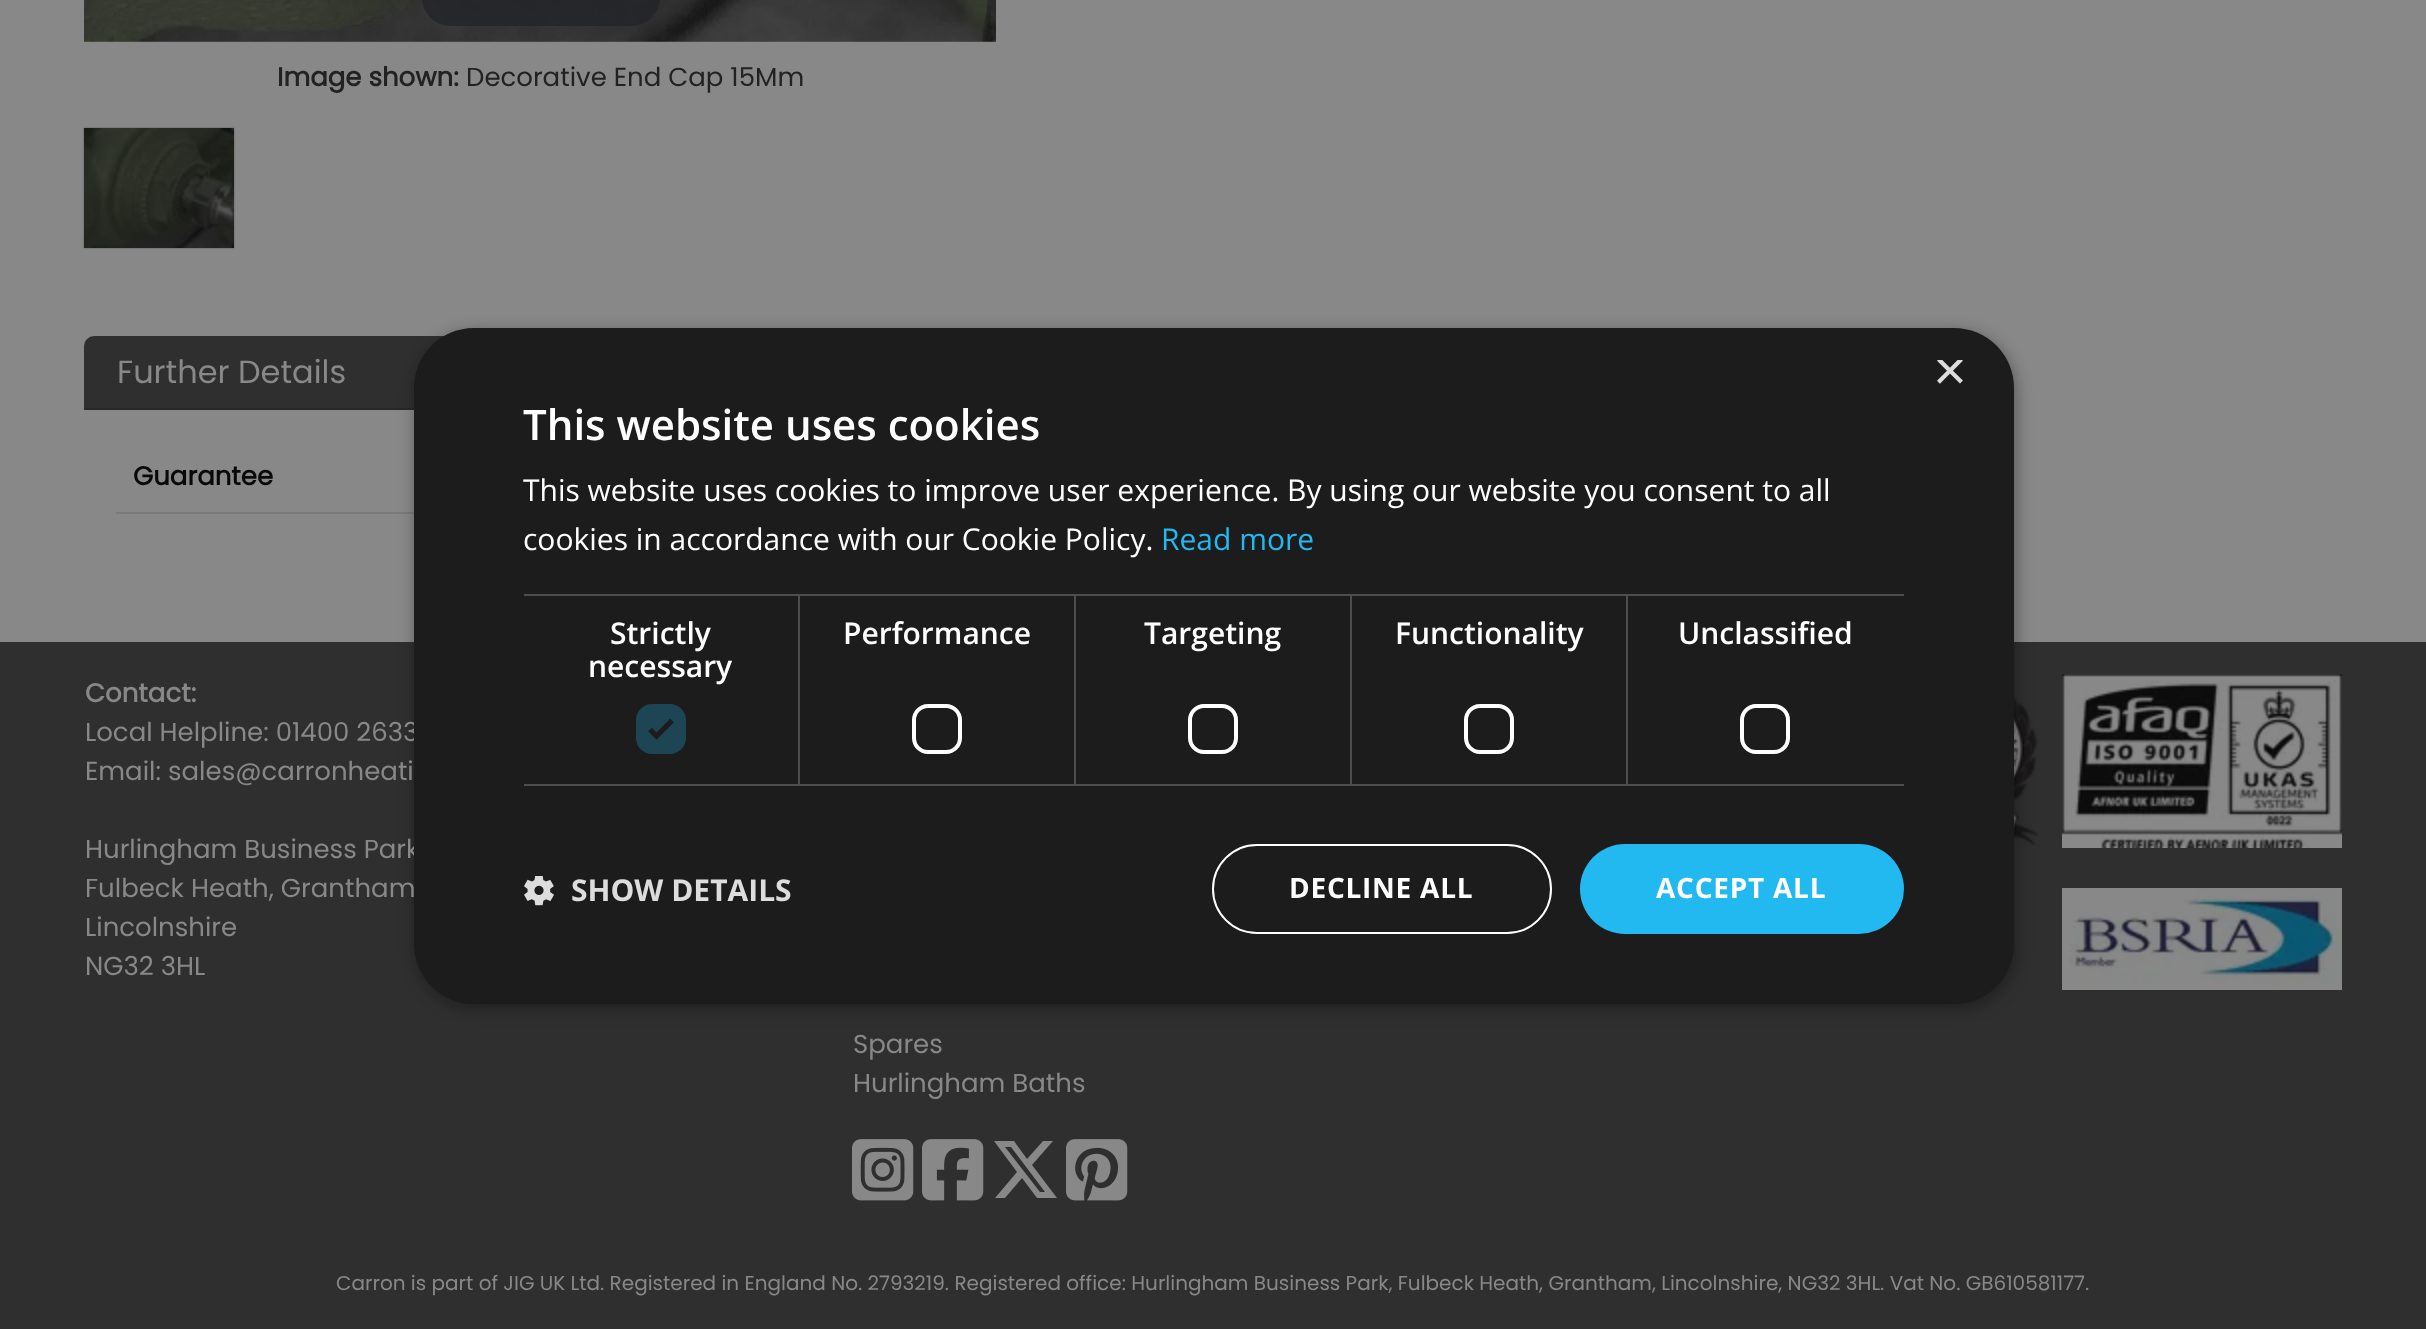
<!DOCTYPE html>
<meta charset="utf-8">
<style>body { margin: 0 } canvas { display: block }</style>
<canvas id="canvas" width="2426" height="1329"></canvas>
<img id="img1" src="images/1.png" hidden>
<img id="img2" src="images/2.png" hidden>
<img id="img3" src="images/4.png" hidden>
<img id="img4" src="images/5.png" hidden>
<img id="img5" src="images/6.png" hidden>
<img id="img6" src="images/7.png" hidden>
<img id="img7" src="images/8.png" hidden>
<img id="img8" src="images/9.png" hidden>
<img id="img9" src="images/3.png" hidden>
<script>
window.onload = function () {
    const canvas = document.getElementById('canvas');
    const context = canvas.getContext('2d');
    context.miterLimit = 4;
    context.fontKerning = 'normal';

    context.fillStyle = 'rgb(136, 136, 136)';
    context.fillRect(0, 0, 2426, 1329);
    context.drawImage(document.getElementById('img1'), 84, 0, 912, 42);
    context.fillStyle = 'rgba(33, 34, 39, 0.7)';
    context.beginPath();
    context.roundRect(422, -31, 238, 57, 31);
    context.fill();
    context.fillStyle = 'rgba(9, 9, 9, 0.3)';
    context.filter = 'blur(1px)';
    context.beginPath();
    context.rect(84, 128, 150, 120);
    context.fill();
    context.filter = 'none';
    context.drawImage(document.getElementById('img2'), 84, 128, 150, 120);
    context.fillStyle = 'rgb(47, 47, 48)';
    context.beginPath();
    context.roundRect(84, 336, 912, 74, [10, 10, 0, 0]);
    context.fill();
    context.fillStyle = 'rgb(40, 40, 41)';
    context.fillRect(84, 408, 330, 2);
    context.fillStyle = 'rgb(120, 122, 124)';
    context.fillRect(116, 512, 298, 2);
    context.fillStyle = 'rgb(47, 47, 48)';
    context.fillRect(0, 642, 2426, 687);
    context.drawImage(document.getElementById('img3'), 2014, 695, 24, 151);
    context.fillStyle = 'rgba(0, 0, 0, 0.35)';
    context.filter = 'blur(8px)';
    context.beginPath();
    context.roundRect(416, 332, 1600, 676, 60);
    context.fill();
    context.filter = 'none';
    context.drawImage(document.getElementById('img4'), 2062, 674, 280, 174);
    context.drawImage(document.getElementById('img5'), 2062, 888, 280, 102);
    context.drawImage(document.getElementById('img6'), 852, 1139, 62, 62);
    context.drawImage(document.getElementById('img7'), 922, 1139, 62, 62);
    context.fillStyle = 'rgb(136, 136, 136)';
    context.beginPath();
    context.moveTo(1043, 1141);
    context.lineTo(1053, 1141);
    context.lineTo(1043, 1141);
    context.lineTo(1053, 1141);
    context.lineTo(1032, 1165);
    context.lineTo(1057, 1198);
    context.lineTo(1037, 1198);
    context.lineTo(1022, 1178);
    context.lineTo(1005, 1198);
    context.lineTo(995, 1198);
    context.lineTo(1017, 1172);
    context.lineTo(994, 1141);
    context.lineTo(1014, 1141);
    context.lineTo(1027, 1159);
    context.closePath();
    context.moveTo(1040, 1192);
    context.lineTo(1045, 1192);
    context.lineTo(1040, 1192);
    context.lineTo(1045, 1192);
    context.lineTo(1011, 1147);
    context.lineTo(1005, 1147);
    context.closePath();
    context.fill();
    context.drawImage(document.getElementById('img8'), 1066, 1139, 62, 62);
    context.font = 'bold 26px Poppins';
    context.fillStyle = 'rgb(34, 34, 34)';
    context.fillText('Image shown:', 277, 86);
    context.font = '26px Poppins';
    context.fillText('Decorative End Cap 15Mm', 466, 86);
    context.font = '32px Poppins';
    context.fillStyle = 'rgb(136, 136, 136)';
    context.fillText('Further Details', 117, 383);
    context.font = 'bold 26px Poppins';
    context.fillStyle = 'rgb(9, 9, 9)';
    context.fillText('Guarantee', 133, 485);
    context.fillStyle = 'rgb(136, 136, 136)';
    context.fillText('Contact:', 85, 702);
    context.font = '26px Poppins';
    context.fillText('Local Helpline: 01400 2633', 85, 741);
    context.fillText('Email: sales@carronheati', 85, 780);
    context.fillText('Hurlingham Business Park', 85, 858);
    context.fillStyle = 'rgb(28, 28, 28)';
    context.beginPath();
    context.roundRect(414, 328, 1600, 676, 60);
    context.fill();
    context.save();
    context.beginPath();
    context.rect(1934, 360, 30, 30);
    context.clip();
    context.font = '58px Liberation Sans';
    context.fillStyle = 'rgb(221, 221, 221)';
    context.fillText('×', 1933, 390);
    context.restore();
    context.font = '600 42px Open Sans';
    context.fillStyle = 'rgb(255, 255, 255)';
    context.fillText('This website uses cookies', 523, 440);
    context.drawImage(document.getElementById('img9'), 524, 876, 30, 30);
    context.font = 'bold 30px Open Sans';
    context.fillStyle = 'rgb(221, 221, 221)';
    context.fillText('SHOW DETAILS', 571, 901);
    context.beginPath();
    context.roundRect(1742, 706, 46, 46, 14);
    context.strokeStyle = 'rgb(255, 255, 255)';
    context.lineWidth = 4;
    context.stroke();
    context.beginPath();
    context.roundRect(1466, 706, 46, 46, 14);
    context.stroke();
    context.beginPath();
    context.roundRect(1190, 706, 46, 46, 14);
    context.stroke();
    context.beginPath();
    context.roundRect(914, 706, 46, 46, 14);
    context.stroke();
    context.fillStyle = 'rgb(30, 69, 83)';
    context.beginPath();
    context.roundRect(636, 704, 50, 50, 16);
    context.fill();
    context.beginPath();
    context.moveTo(650, 729.5);
    context.lineTo(656.5, 736);
    context.lineTo(672, 720.5);
    context.strokeStyle = 'rgb(28, 28, 28)';
    context.lineWidth = 5.2;
    context.stroke();
    context.beginPath();
    context.roundRect(1213, 845, 338, 88, 44);
    context.strokeStyle = 'rgb(255, 255, 255)';
    context.lineWidth = 2;
    context.stroke();
    context.letterSpacing = '0.75px';
    context.font = 'bold 28px Open Sans';
    context.fillStyle = 'rgb(255, 255, 255)';
    context.fillText('DECLINE ALL', 1289, 898);
    context.fillStyle = 'rgb(34, 184, 240)';
    context.beginPath();
    context.roundRect(1580, 844, 324, 90, 45);
    context.fill();
    context.fillStyle = 'rgb(255, 255, 255)';
    context.fillText('ACCEPT ALL', 1656, 898);
    context.letterSpacing = '0px';
    context.font = '600 30px Open Sans';
    context.fillText('Unclassified', 1678, 644);
    context.fillText('Functionality', 1395, 644);
    context.fillStyle = 'rgb(77, 77, 77)';
    context.fillRect(524, 594, 1380, 2);
    context.fillRect(1626, 594, 2, 192);
    context.fillRect(1352, 784, 552, 2);
    context.fillStyle = 'rgb(255, 255, 255)';
    context.fillText('Targeting', 1144, 644);
    context.fillStyle = 'rgb(77, 77, 77)';
    context.fillRect(1350, 594, 2, 192);
    context.fillRect(1076, 784, 276, 2);
    context.fillStyle = 'rgb(255, 255, 255)';
    context.fillText('Performance', 843, 644);
    context.fillStyle = 'rgb(77, 77, 77)';
    context.fillRect(1074, 594, 2, 192);
    context.fillRect(800, 784, 276, 2);
    context.fillStyle = 'rgb(255, 255, 255)';
    context.fillText('necessary', 588, 677);
    context.fillText('Strictly', 610, 644);
    context.fillStyle = 'rgb(77, 77, 77)';
    context.fillRect(798, 594, 2, 192);
    context.fillRect(524, 784, 276, 2);
    context.font = '30px Open Sans';
    context.fillStyle = 'rgb(34, 184, 240)';
    context.fillText('Read more', 1161, 550);
    context.fillStyle = 'rgb(255, 255, 255)';
    context.fillText('cookies in accordance with our Cookie Policy.', 523, 550);
    context.fillText('This website uses cookies to improve user experience. By using our website you consent to all', 523, 501);
    context.font = '26px Poppins';
    context.fillStyle = 'rgb(136, 136, 136)';
    context.fillText('Fulbeck Heath, Grantham', 85, 897);
    context.fillText('Lincolnshire', 85, 936);
    context.fillText('NG32 3HL', 85, 975);
    context.fillText('Spares', 853, 1053);
    context.fillText('Hurlingham Baths', 853, 1092);
    context.font = '20px Poppins';
    context.fillText('Carron is part of JIG UK Ltd. Registered in England No. 2793219. Registered office: Hurlingham Business Park, Fulbeck Heath, Grantham, Lincolnshire, NG32 3HL. Vat No. GB610581177.', 336, 1290);
};
</script>
